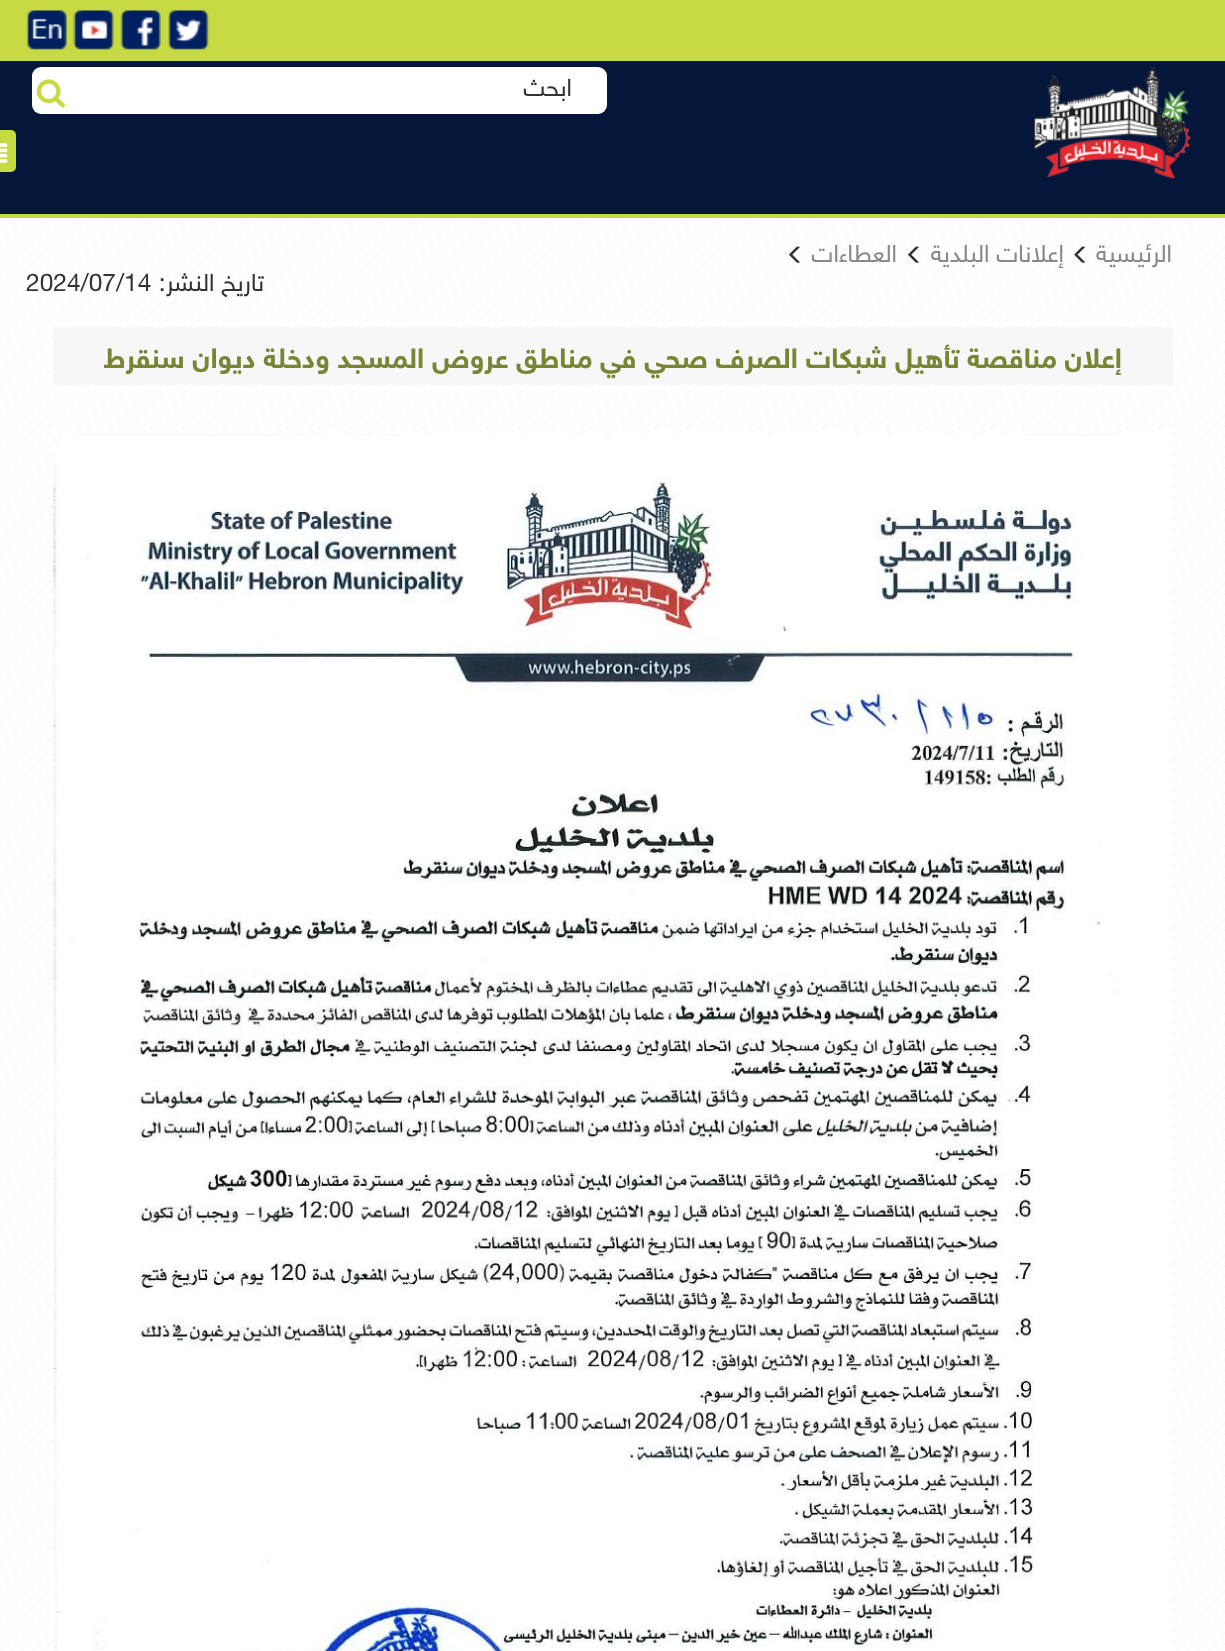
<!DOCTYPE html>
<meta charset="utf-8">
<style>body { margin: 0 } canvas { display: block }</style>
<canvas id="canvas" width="1225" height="1651"></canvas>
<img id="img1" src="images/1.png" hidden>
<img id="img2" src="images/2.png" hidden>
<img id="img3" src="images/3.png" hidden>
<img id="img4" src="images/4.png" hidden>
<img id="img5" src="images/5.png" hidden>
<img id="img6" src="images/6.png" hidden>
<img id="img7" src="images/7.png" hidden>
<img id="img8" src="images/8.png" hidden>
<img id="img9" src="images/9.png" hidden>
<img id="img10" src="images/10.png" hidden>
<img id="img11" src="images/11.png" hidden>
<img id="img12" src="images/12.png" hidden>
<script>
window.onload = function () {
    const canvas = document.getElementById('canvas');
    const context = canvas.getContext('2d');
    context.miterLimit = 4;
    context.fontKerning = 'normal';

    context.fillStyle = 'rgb(255, 255, 255)';
    context.fillRect(0, 0, 1225, 1651);
    context.drawImage(document.getElementById('img1'), 0, 218, 1225, 1432);
    context.fillStyle = 'rgb(4, 22, 58)';
    context.fillRect(0, 61, 1225, 153);
    context.fillStyle = 'rgb(199, 218, 67)';
    context.fillRect(0, 214, 1225, 4);
    context.fillRect(0, 0, 1225, 61);
    context.drawImage(document.getElementById('img2'), 168, 10, 41, 40);
    context.drawImage(document.getElementById('img3'), 120, 10, 41, 40);
    context.drawImage(document.getElementById('img4'), 73, 10, 41, 40);
    context.drawImage(document.getElementById('img5'), 26, 10, 41, 40);
    context.drawImage(document.getElementById('img6'), 1033, 67, 158, 112);
    context.fillStyle = 'rgb(255, 255, 255)';
    context.beginPath();
    context.roundRect(32, 67, 575, 47, 9);
    context.fill();
    context.drawImage(document.getElementById('img7'), 36, 79, 29, 29);
    context.fillStyle = 'rgb(199, 218, 67)';
    context.beginPath();
    context.roundRect(-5, 130, 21, 42, 5);
    context.fill();
    context.drawImage(document.getElementById('img8'), 0, 143, 8, 20);
    context.drawImage(document.getElementById('img9'), 1074, 246, 12, 17);
    context.drawImage(document.getElementById('img10'), 908, 246, 11, 17);
    context.drawImage(document.getElementById('img11'), 789, 246, 11, 17);
    context.fillStyle = 'rgb(247, 247, 247)';
    context.fillRect(53, 327, 1120, 58);
    context.drawImage(document.getElementById('img12'), 52, 429, 1120, 1222);
    context.direction = 'rtl';
    context.font = '24.5px "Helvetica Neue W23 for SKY"';
    context.fillStyle = 'rgb(51, 51, 51)';
    context.fillText('ابحث', 572, 96);
    context.fillStyle = 'rgb(137, 137, 137)';
    context.fillText('الرئيسية', 1172, 262);
    context.fillText('إعلانات البلدية', 1064, 262);
    context.fillText('العطاءات', 897, 262);
    context.fillStyle = 'rgb(51, 51, 51)';
    context.fillText('تاريخ النشر:', 264, 291);
    context.direction = 'ltr';
    context.fillText('2024/07/14', 26, 291);
    context.direction = 'rtl';
    context.font = 'bold 28px "Helvetica Neue W23 for SKY"';
    context.fillStyle = 'rgb(122, 132, 52)';
    context.fillText('إعلان مناقصة تأهيل شبكات الصرف صحي في مناطق عروض المسجد ودخلة ديوان سنقرط', 1122, 368);
};
</script>
